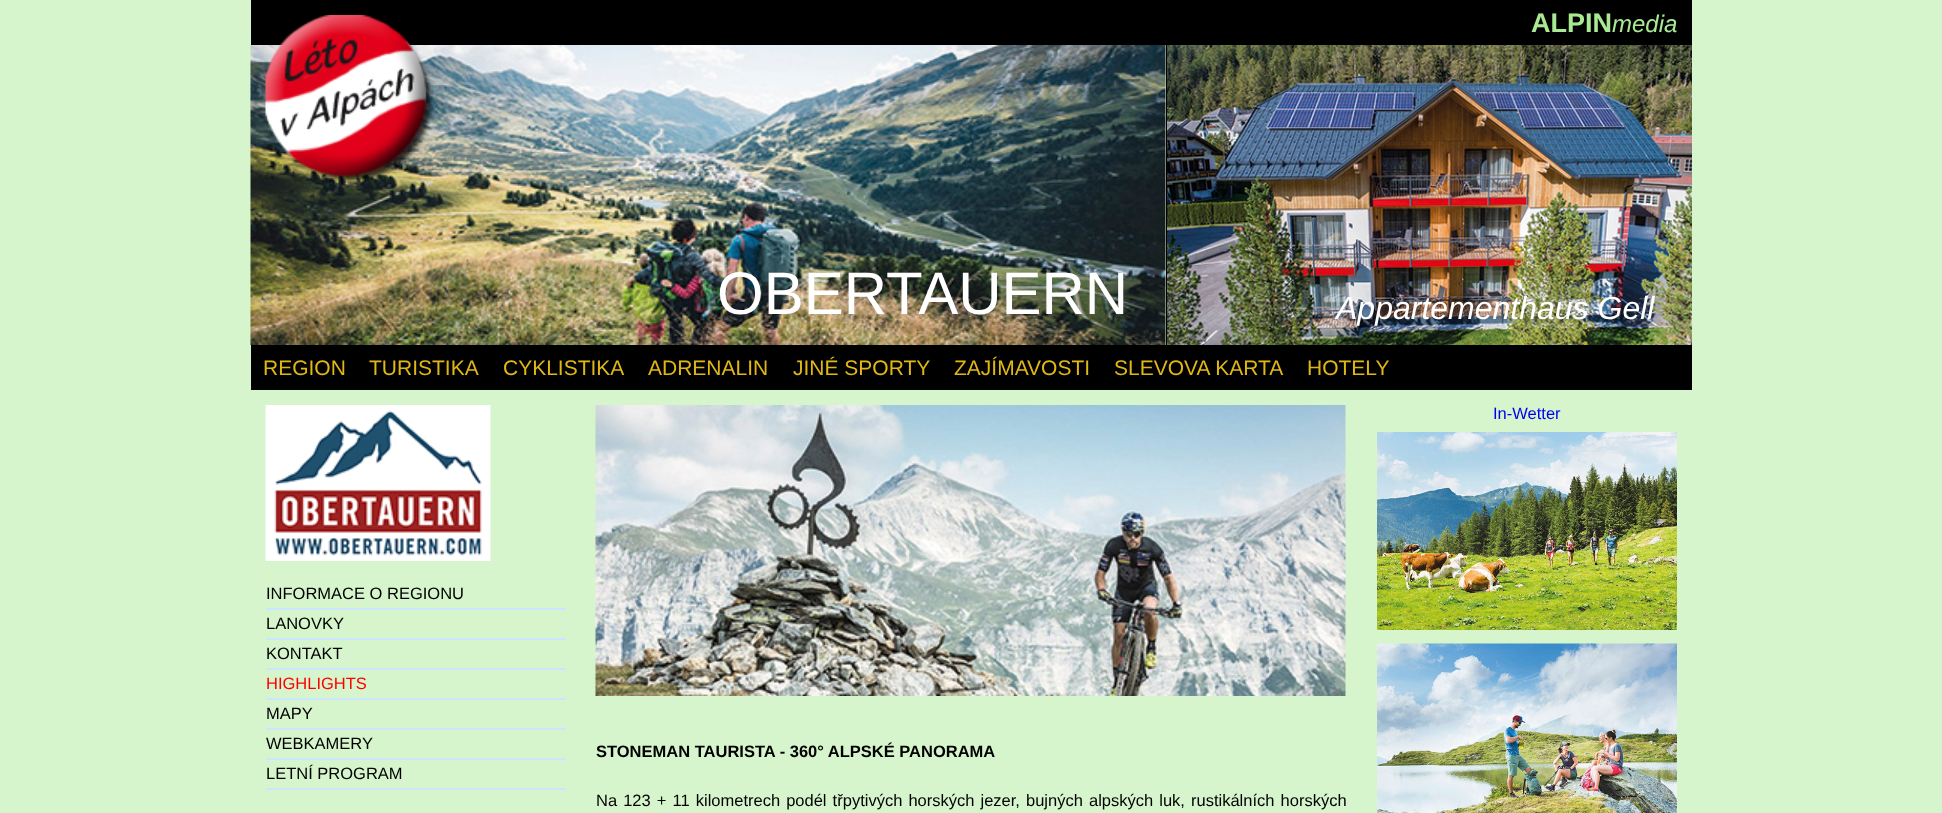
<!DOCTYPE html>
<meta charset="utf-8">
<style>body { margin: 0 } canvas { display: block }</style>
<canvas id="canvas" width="1942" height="813"></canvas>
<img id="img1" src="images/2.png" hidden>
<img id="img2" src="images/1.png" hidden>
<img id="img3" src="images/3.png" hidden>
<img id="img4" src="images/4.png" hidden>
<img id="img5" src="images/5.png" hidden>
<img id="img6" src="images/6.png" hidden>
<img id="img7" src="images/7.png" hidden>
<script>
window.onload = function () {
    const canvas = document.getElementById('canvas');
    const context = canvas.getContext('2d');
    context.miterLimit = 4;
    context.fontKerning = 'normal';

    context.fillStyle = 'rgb(214, 245, 204)';
    context.fillRect(0, 0, 1942, 813);
    context.fillStyle = 'rgb(0, 0, 0)';
    context.fillRect(251, 0, 1441, 45);
    context.drawImage(document.getElementById('img1'), 250, 45, 916, 300);
    context.drawImage(document.getElementById('img2'), 265, 15, 169, 168);
    context.fillRect(1166, 45, 1, 300);
    context.drawImage(document.getElementById('img3'), 1167, 45, 525, 300);
    context.fillRect(251, 345, 1441, 45);
    context.drawImage(document.getElementById('img4'), 1377, 432, 300, 198);
    context.drawImage(document.getElementById('img5'), 1377, 643, 300, 170);
    context.drawImage(document.getElementById('img6'), 265, 405, 226, 156);
    context.fillStyle = 'rgb(204, 230, 255)';
    context.fillRect(266, 608, 300, 2);
    context.fillRect(266, 638, 300, 2);
    context.fillRect(266, 668, 300, 2);
    context.fillRect(266, 698, 300, 2);
    context.fillRect(266, 728, 300, 2);
    context.fillRect(266, 758, 300, 2);
    context.fillRect(266, 788, 300, 2);
    context.drawImage(document.getElementById('img7'), 595, 405, 751, 291);
    context.font = 'bold 27px Liberation Sans';
    context.fillStyle = 'rgb(169, 233, 146)';
    context.fillText('ALPIN', 1531, 32);
    context.font = 'italic 24px Liberation Sans';
    context.fillText('media', 1612, 32);
    context.font = '60px Liberation Sans';
    context.fillStyle = 'rgb(255, 255, 255)';
    context.fillText('OBERTAUERN', 717, 314);
    context.font = 'italic 32px Liberation Sans';
    context.fillText('Appartementhaus Gell', 1336, 319);
    context.font = '21px Liberation Sans';
    context.fillStyle = 'rgb(225, 183, 21)';
    context.fillText('REGION', 263, 375);
    context.fillText('TURISTIKA', 369, 375);
    context.fillText('CYKLISTIKA', 503, 375);
    context.fillText('ADRENALIN', 648, 375);
    context.fillText('JINÉ SPORTY', 793, 375);
    context.fillText('ZAJÍMAVOSTI', 954, 375);
    context.fillText('SLEVOVA KARTA', 1114, 375);
    context.fillText('HOTELY', 1307, 375);
    context.font = '16.5px Liberation Sans';
    context.fillStyle = 'rgb(0, 0, 238)';
    context.fillText('In-Wetter', 1493, 419);
    context.fillStyle = 'rgb(0, 0, 0)';
    context.fillText('INFORMACE O REGIONU', 266, 599);
    context.fillText('LANOVKY', 266, 629);
    context.fillText('KONTAKT', 266, 659);
    context.fillStyle = 'rgb(255, 0, 0)';
    context.fillText('HIGHLIGHTS', 266, 689);
    context.fillStyle = 'rgb(0, 0, 0)';
    context.fillText('MAPY', 266, 719);
    context.fillText('WEBKAMERY', 266, 749);
    context.fillText('LETNÍ PROGRAM', 266, 779);
    context.font = 'bold 16.5px Liberation Sans';
    context.fillText('STONEMAN TAURISTA - 360° ALPSKÉ PANORAMA', 596, 757);
    context.wordSpacing = '1.5px';
    context.font = '16.5px Liberation Sans';
    context.fillText('Na 123 + 11 kilometrech podél třpytivých horských jezer, bujných alpských luk, rustikálních horských', 596, 806);
};
</script>
